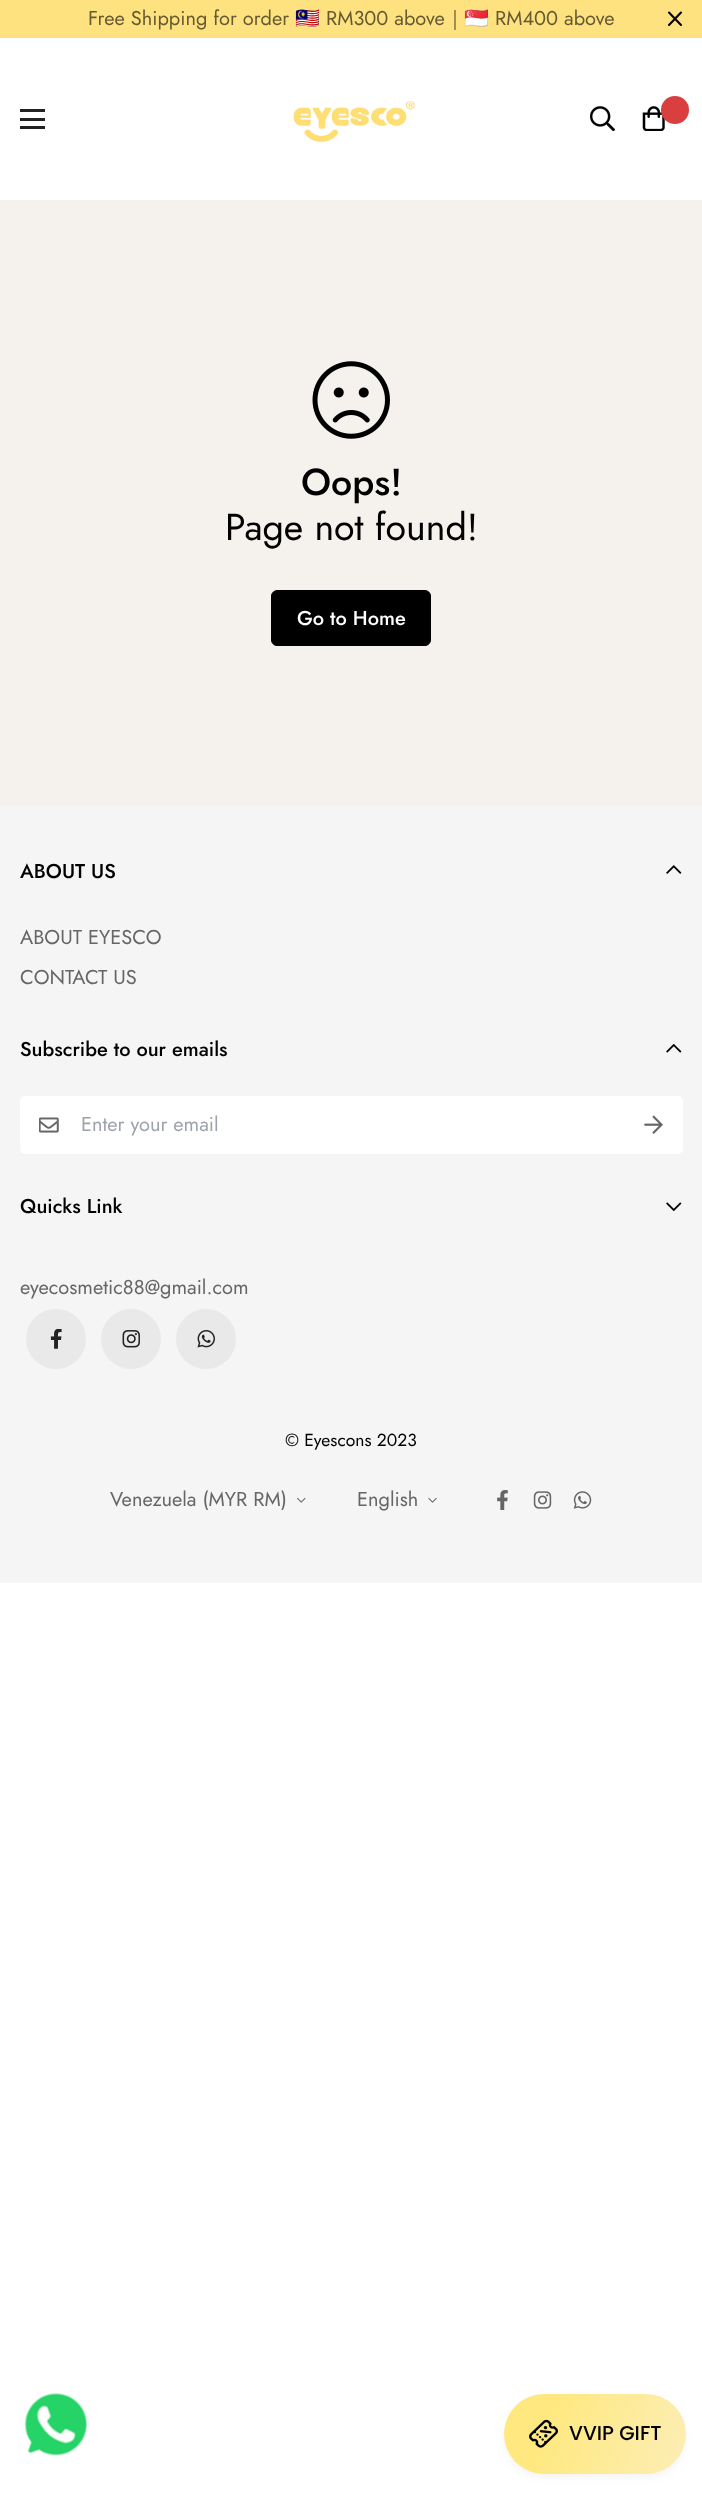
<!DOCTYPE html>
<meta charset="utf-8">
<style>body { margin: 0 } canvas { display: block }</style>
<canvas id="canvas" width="702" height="2499"></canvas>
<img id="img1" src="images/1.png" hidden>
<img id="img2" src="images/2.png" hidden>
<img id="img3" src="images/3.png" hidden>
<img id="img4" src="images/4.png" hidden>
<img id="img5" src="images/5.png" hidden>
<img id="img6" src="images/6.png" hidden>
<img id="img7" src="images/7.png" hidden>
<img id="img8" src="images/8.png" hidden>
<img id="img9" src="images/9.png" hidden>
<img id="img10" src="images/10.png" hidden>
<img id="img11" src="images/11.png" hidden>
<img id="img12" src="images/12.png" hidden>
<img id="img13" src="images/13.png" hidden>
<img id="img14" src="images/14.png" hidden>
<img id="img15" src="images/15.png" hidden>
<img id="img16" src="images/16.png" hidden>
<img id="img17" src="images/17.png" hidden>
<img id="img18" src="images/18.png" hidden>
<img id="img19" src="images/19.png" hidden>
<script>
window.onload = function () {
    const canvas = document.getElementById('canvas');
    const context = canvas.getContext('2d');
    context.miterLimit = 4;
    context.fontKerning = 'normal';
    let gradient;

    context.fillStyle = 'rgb(255, 255, 255)';
    context.fillRect(0, 0, 702, 2499);
    context.fillStyle = 'rgb(254, 226, 128)';
    context.fillRect(0, 0, 702, 38);
    context.beginPath();
    context.moveTo(669, 25);
    context.lineTo(681, 12.5);
    context.moveTo(669, 12.5);
    context.lineTo(681, 25);
    context.strokeStyle = 'rgb(0, 0, 0)';
    context.lineWidth = 2.1;
    context.lineCap = 'round';
    context.lineJoin = 'round';
    context.stroke();
    context.fillStyle = 'rgb(34, 34, 34)';
    context.fillRect(20, 118, 25, 3);
    context.fillRect(20, 109, 25, 3);
    context.fillRect(20, 126, 25, 3);
    context.drawImage(document.getElementById('img1'), 293, 101, 122, 42);
    context.drawImage(document.getElementById('img2'), 590, 106, 25, 25);
    context.drawImage(document.getElementById('img3'), 642, 106, 23, 25);
    context.fillStyle = 'rgb(218, 63, 63)';
    context.beginPath();
    context.arc(675, 110, 14, 0, 2 * Math.PI);
    context.fill();
    context.fillStyle = 'rgb(245, 241, 237)';
    context.fillRect(0, 200, 702, 606);
    context.drawImage(document.getElementById('img4'), 312, 361, 78, 78);
    context.fillStyle = 'rgb(0, 0, 0)';
    context.beginPath();
    context.roundRect(271.5, 590.5, 159, 55, 5.5);
    context.fill();
    context.lineWidth = 1;
    context.lineJoin = 'miter';
    context.stroke();
    context.fillStyle = 'rgb(245, 245, 245)';
    context.fillRect(0, 806, 702, 777);
    context.drawImage(document.getElementById('img5'), 666, 865, 16, 9);
    context.drawImage(document.getElementById('img6'), 666, 1044, 16, 9);
    context.fillStyle = 'rgb(255, 255, 255)';
    context.beginPath();
    context.roundRect(20, 1096, 663, 58, 5);
    context.fill();
    context.drawImage(document.getElementById('img7'), 39, 1117, 20, 16);
    context.drawImage(document.getElementById('img8'), 644, 1115, 19, 19);
    context.drawImage(document.getElementById('img9'), 666, 1202, 16, 9);
    context.fillStyle = 'rgb(233, 233, 233)';
    context.beginPath();
    context.arc(56, 1339, 30, 0, 2 * Math.PI);
    context.fill();
    context.drawImage(document.getElementById('img10'), 50, 1329, 12, 20);
    context.beginPath();
    context.arc(131, 1339, 30, 0, 2 * Math.PI);
    context.fill();
    context.drawImage(document.getElementById('img11'), 122, 1330, 18, 18);
    context.beginPath();
    context.arc(206, 1339, 30, 0, 2 * Math.PI);
    context.fill();
    context.drawImage(document.getElementById('img12'), 197, 1330, 18, 18);
    context.drawImage(document.getElementById('img13'), 297, 1497, 9, 6);
    context.drawImage(document.getElementById('img14'), 428, 1497, 9, 6);
    context.drawImage(document.getElementById('img15'), 497, 1490, 11, 20);
    context.drawImage(document.getElementById('img16'), 533, 1491, 19, 18);
    context.drawImage(document.getElementById('img17'), 573, 1491, 19, 18);
    context.drawImage(document.getElementById('img18'), 24, 2393, 63, 63);
    context.fillStyle = 'rgba(68, 68, 68, 0.08)';
    context.filter = 'blur(5px)';
    context.beginPath();
    context.roundRect(506, 2401, 178, 75, 37.5);
    context.fill();
    context.filter = 'none';
    gradient = context.createLinearGradient(501, 2401, 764, 2494);
    gradient.addColorStop(0.17, 'rgb(255, 232, 127)');
    gradient.addColorStop(1, 'rgb(250, 241, 211)');
    context.fillStyle = gradient;
    context.beginPath();
    context.roundRect(504, 2394, 182, 80, 40);
    context.fill();
    context.drawImage(document.getElementById('img19'), 529, 2419, 29, 29);
    context.font = '20px Jost';
    context.fillStyle = 'rgb(102, 90, 51)';
    context.fillText('Free Shipping for order', 88, 25);
    context.font = '20px Noto Color Emoji';
    context.fillText('🇲🇾', 295, 25);
    context.font = '20px Jost';
    context.fillText('RM300 above', 326, 25);
    context.font = '500 20px WenQuanYi Zen Hei';
    context.fillText('｜', 445, 25);
    context.font = '20px Noto Color Emoji';
    context.fillText('🇸🇬', 464, 25);
    context.font = '20px Jost';
    context.fillText('RM400 above', 495, 25);
    context.font = '500 37.5px Jost';
    context.fillStyle = 'rgb(0, 0, 0)';
    context.fillText('Oops!', 301, 495);
    context.font = '37.5px Jost';
    context.fillText('Page not found!', 225, 540);
    context.font = '500 20px Jost';
    context.fillStyle = 'rgb(255, 255, 255)';
    context.fillText('Go to Home', 297, 625);
    context.fillStyle = 'rgb(0, 0, 0)';
    context.fillText('ABOUT US', 20, 878);
    context.font = '20px Jost';
    context.fillStyle = 'rgb(102, 102, 102)';
    context.fillText('ABOUT EYESCO', 20, 944);
    context.fillText('CONTACT US', 20, 984);
    context.font = '500 20px Jost';
    context.fillStyle = 'rgb(0, 0, 0)';
    context.fillText('Subscribe to our emails', 20, 1056);
    context.font = '20px Jost';
    context.fillStyle = 'rgb(156, 163, 175)';
    context.fillText('Enter your email', 81, 1131);
    context.font = '500 20px Jost';
    context.fillStyle = 'rgb(0, 0, 0)';
    context.fillText('Quicks Link', 20, 1213);
    context.font = '20px Jost';
    context.fillStyle = 'rgb(102, 102, 102)';
    context.fillText('eyecosmetic88@gmail.com', 20, 1294);
    context.font = '17.5px Jost';
    context.fillStyle = 'rgb(0, 0, 0)';
    context.fillText('© Eyescons 2023', 285, 1446);
    context.font = '20px Jost';
    context.fillStyle = 'rgb(102, 102, 102)';
    context.fillText('Venezuela (MYR RM)', 110, 1506);
    context.fillText('English', 357, 1506);
    context.font = '500 20px Poppins';
    context.fillStyle = 'rgb(0, 0, 0)';
    context.fillText('VVIP GIFT', 569, 2440);
};
</script>
